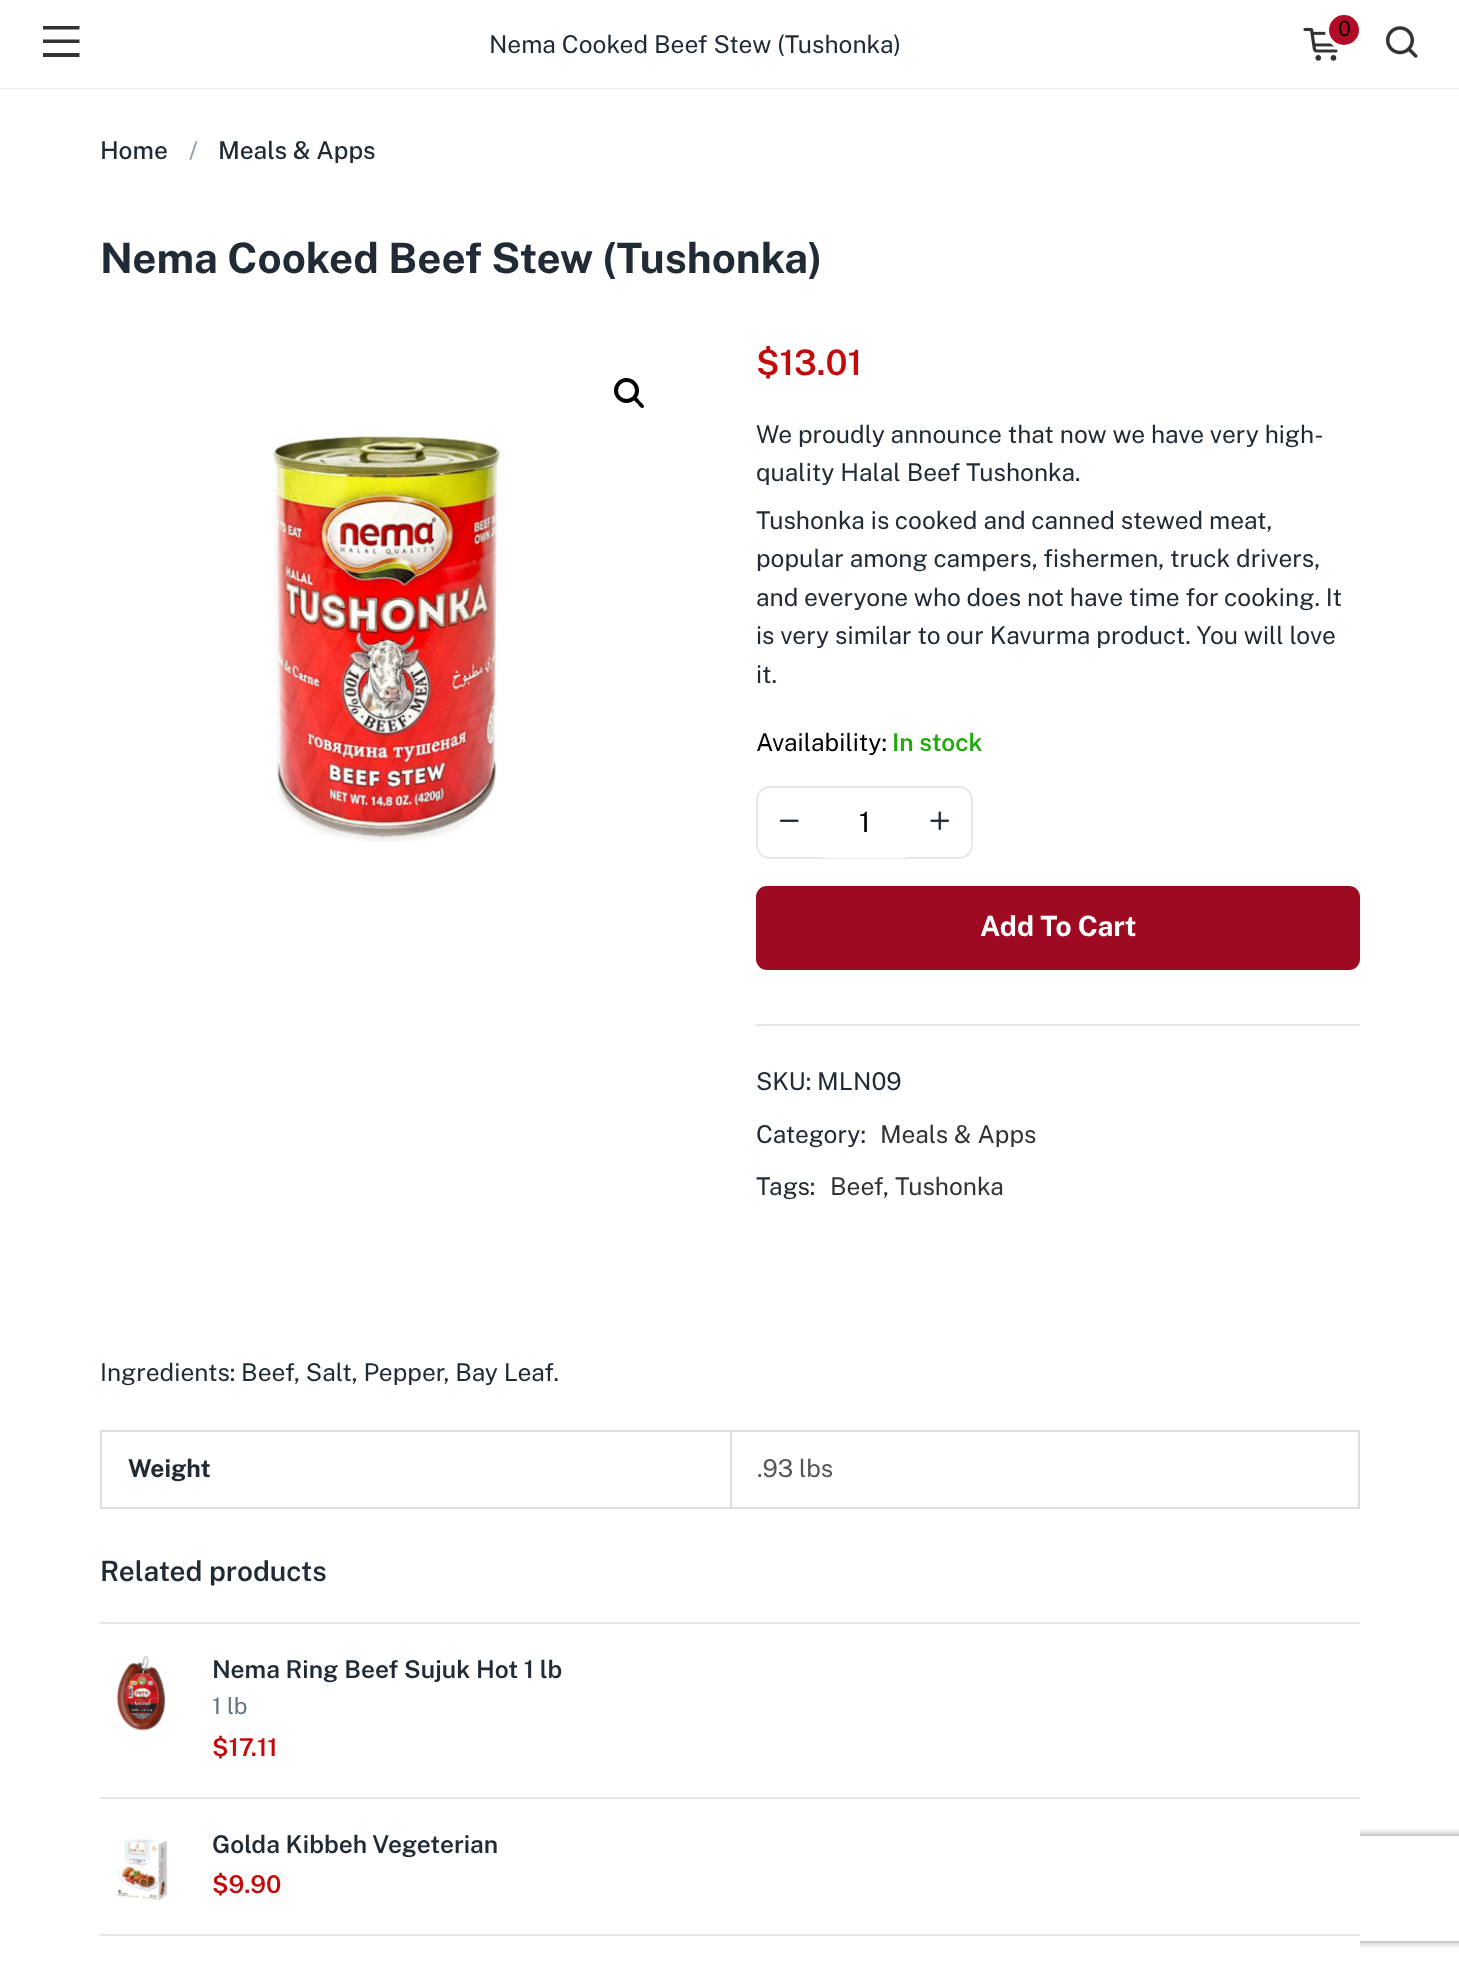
<!DOCTYPE html>
<meta charset="utf-8">
<style>body { margin: 0 } canvas { display: block }</style>
<canvas id="canvas" width="1459" height="1964"></canvas>
<img id="img1" src="images/1.png" hidden>
<img id="img2" src="images/2.png" hidden>
<img id="img3" src="images/3.png" hidden>
<img id="img4" src="images/4.png" hidden>
<img id="img5" src="images/5.png" hidden>
<img id="img6" src="images/6.png" hidden>
<img id="img7" src="images/7.png" hidden>
<script>
window.onload = function () {
    const canvas = document.getElementById('canvas');
    const context = canvas.getContext('2d');
    context.miterLimit = 4;
    context.fontKerning = 'normal';

    context.fillStyle = 'rgb(255, 255, 255)';
    context.fillRect(0, 0, 1459, 1964);
    context.fillStyle = 'rgba(0, 0, 0, 0.2)';
    context.filter = 'blur(1px)';
    context.beginPath();
    context.rect(0, 0, 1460, 88);
    context.fill();
    context.filter = 'none';
    context.fillStyle = 'rgb(255, 255, 255)';
    context.fillRect(0, 0, 1459, 88);
    context.fillStyle = 'rgb(51, 51, 51)';
    context.beginPath();
    context.moveTo(79.5, 53);
    context.lineTo(43, 53);
    context.lineTo(43, 57);
    context.lineTo(79.5, 57);
    context.closePath();
    context.moveTo(79.5, 39.5);
    context.lineTo(43, 39.5);
    context.lineTo(43, 43);
    context.lineTo(79.5, 43);
    context.closePath();
    context.moveTo(79.5, 26);
    context.lineTo(43, 26);
    context.lineTo(43, 29.5);
    context.lineTo(79.5, 29.5);
    context.closePath();
    context.fill();
    context.drawImage(document.getElementById('img1'), 1303, 27, 35, 34);
    context.fillStyle = 'rgb(179, 12, 40)';
    context.beginPath();
    context.arc(1344, 30, 17, 0, 2 * Math.PI);
    context.fill();
    context.strokeStyle = 'rgb(255, 255, 255)';
    context.lineWidth = 4;
    context.stroke();
    context.drawImage(document.getElementById('img2'), 1386, 26, 32, 32);
    context.beginPath();
    context.arc(626.5, 390.5, 10.5, 0, 2 * Math.PI);
    context.strokeStyle = 'rgb(0, 0, 0)';
    context.stroke();
    context.fillStyle = 'rgb(0, 0, 0)';
    context.beginPath();
    context.moveTo(634, 397.5);
    context.bezierCurveTo(636, 395.5, 639, 400, 640, 401.5);
    context.bezierCurveTo(641, 402.5, 645.5, 405.5, 643.5, 407.5);
    context.bezierCurveTo(641.5, 409.5, 638.5, 405, 637.5, 403.5);
    context.bezierCurveTo(636.5, 402.5, 632, 399.5, 634, 397.5);
    context.closePath();
    context.fill();
    context.drawImage(document.getElementById('img3'), 273, 435, 231, 407);
    context.beginPath();
    context.roundRect(757, 787, 215, 71, 13);
    context.strokeStyle = 'rgb(229, 232, 235)';
    context.lineWidth = 2;
    context.stroke();
    context.drawImage(document.getElementById('img4'), 779, 819, 20, 3);
    context.fillStyle = 'rgb(255, 255, 255)';
    context.beginPath();
    context.roundRect(812, 788, 105, 70, 14);
    context.fill();
    context.drawImage(document.getElementById('img5'), 930, 811, 20, 20);
    context.fillStyle = 'rgb(159, 10, 35)';
    context.beginPath();
    context.roundRect(756, 886, 604, 84, 11);
    context.fill();
    context.fillStyle = 'rgb(229, 232, 235)';
    context.fillRect(756, 1024, 604, 2);
    context.fillStyle = 'rgb(221, 221, 221)';
    context.fillRect(100, 1430, 1260, 2);
    context.fillRect(1358, 1430, 2, 79);
    context.fillRect(100, 1507, 1260, 2);
    context.fillRect(100, 1430, 2, 79);
    context.fillRect(730, 1430, 2, 79);
    context.fillStyle = 'rgb(229, 232, 235)';
    context.fillRect(100, 1622, 1260, 2);
    context.drawImage(document.getElementById('img6'), 116, 1656, 50, 75);
    context.save();
    context.beginPath();
    context.moveTo(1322, 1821);
    context.lineTo(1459, 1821);
    context.lineTo(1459, 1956);
    context.lineTo(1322, 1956);
    context.closePath();
    context.moveTo(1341, 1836);
    context.lineTo(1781, 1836);
    context.bezierCurveTo(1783, 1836, 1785, 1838, 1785, 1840);
    context.lineTo(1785, 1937);
    context.bezierCurveTo(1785, 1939, 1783, 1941, 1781, 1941);
    context.lineTo(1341, 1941);
    context.bezierCurveTo(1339, 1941, 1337, 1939, 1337, 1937);
    context.lineTo(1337, 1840);
    context.bezierCurveTo(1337, 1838, 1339, 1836, 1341, 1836);
    context.closePath();
    context.clip('evenodd');
    context.fillStyle = 'rgb(128, 128, 128)';
    context.filter = 'blur(4.5px)';
    context.beginPath();
    context.roundRect(1337, 1836, 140, 105, 4);
    context.fill();
    context.filter = 'none';
    context.restore();
    context.fillStyle = 'rgb(255, 255, 255)';
    context.fillRect(1328, 1827, 32, 107);
    context.fillStyle = 'rgb(229, 232, 235)';
    context.fillRect(100, 1797, 1260, 2);
    context.drawImage(document.getElementById('img7'), 116, 1839, 52, 62);
    context.fillStyle = 'rgb(255, 255, 255)';
    context.fillRect(1328, 1936, 32, 14);
    context.fillStyle = 'rgb(229, 232, 235)';
    context.fillRect(100, 1934, 1260, 2);
    context.font = '24.5px Public Sans';
    context.fillStyle = 'rgb(33, 43, 54)';
    context.fillText('Nema Cooked Beef Stew (Tushonka)', 489, 53);
    context.font = '21px Public Sans';
    context.fillStyle = 'rgb(0, 0, 0)';
    context.fillText('0', 1338, 36);
    context.font = '500 24.5px Public Sans';
    context.fillStyle = 'rgb(33, 43, 54)';
    context.fillText('Home', 100, 159);
    context.fillStyle = 'rgb(145, 158, 171)';
    context.fillText('/', 189, 159);
    context.fillStyle = 'rgb(33, 43, 54)';
    context.fillText('Meals & Apps', 218, 159);
    context.font = 'bold 42px Public Sans';
    context.fillText('Nema Cooked Beef Stew (Tushonka)', 100, 273);
    context.font = '600 35px Public Sans';
    context.fillStyle = 'rgb(195, 11, 11)';
    context.fillText('$13.01', 756, 375);
    context.font = '24.5px Public Sans';
    context.fillStyle = 'rgb(33, 43, 54)';
    context.fillText('We proudly announce that now we have very high-', 756, 443);
    context.fillText('quality Halal Beef Tushonka.', 756, 481);
    context.fillText('Tushonka is cooked and canned stewed meat,', 756, 529);
    context.fillText('popular among campers, fishermen, truck drivers,', 756, 567);
    context.fillText('and everyone who does not have time for cooking. It', 756, 606);
    context.fillText('is very similar to our Kavurma product. You will love', 756, 644);
    context.fillText('it.', 756, 683);
    context.fillStyle = 'rgb(0, 0, 0)';
    context.fillText('Availability:', 756, 751);
    context.font = '600 24.5px Public Sans';
    context.fillStyle = 'rgb(33, 171, 11)';
    context.fillText('In stock', 892, 751);
    context.font = '28px Public Sans';
    context.fillStyle = 'rgb(0, 0, 0)';
    context.fillText('1', 859, 832);
    context.font = 'bold 28px Public Sans';
    context.fillStyle = 'rgb(255, 255, 255)';
    context.fillText('Add To Cart', 980, 936);
    context.font = '24.5px Public Sans';
    context.fillStyle = 'rgb(33, 43, 54)';
    context.fillText('SKU: MLN09', 756, 1090);
    context.fillText('Category:', 756, 1143);
    context.fillStyle = 'rgb(51, 51, 51)';
    context.fillText('Meals & Apps', 880, 1143);
    context.fillStyle = 'rgb(33, 43, 54)';
    context.fillText('Tags:', 756, 1195);
    context.fillStyle = 'rgb(51, 51, 51)';
    context.fillText('Beef', 830, 1195);
    context.fillStyle = 'rgb(33, 43, 54)';
    context.fillText(',', 883, 1195);
    context.fillStyle = 'rgb(51, 51, 51)';
    context.fillText('Tushonka', 895, 1195);
    context.fillStyle = 'rgb(33, 43, 54)';
    context.fillText('Ingredients: Beef, Salt, Pepper, Bay Leaf.', 100, 1381);
    context.font = 'bold 24.5px Public Sans';
    context.fillText('Weight', 128, 1477);
    context.font = '24.5px Public Sans';
    context.fillStyle = 'rgb(85, 85, 85)';
    context.fillText('.93 lbs', 757, 1477);
    context.font = '600 28px Public Sans';
    context.fillStyle = 'rgb(33, 43, 54)';
    context.fillText('Related products', 100, 1581);
    context.font = '600 24.5px Public Sans';
    context.fillText('Nema Ring Beef Sujuk Hot 1 lb', 212, 1678);
    context.font = '23px Public Sans';
    context.fillStyle = 'rgb(99, 115, 129)';
    context.fillText('1 lb', 212, 1714);
    context.font = '600 24.5px Public Sans';
    context.fillStyle = 'rgb(195, 11, 11)';
    context.fillText('$17.11', 212, 1756);
    context.fillStyle = 'rgb(33, 43, 54)';
    context.fillText('Golda Kibbeh Vegeterian', 212, 1853);
    context.fillStyle = 'rgb(195, 11, 11)';
    context.fillText('$9.90', 212, 1893);
};
</script>
